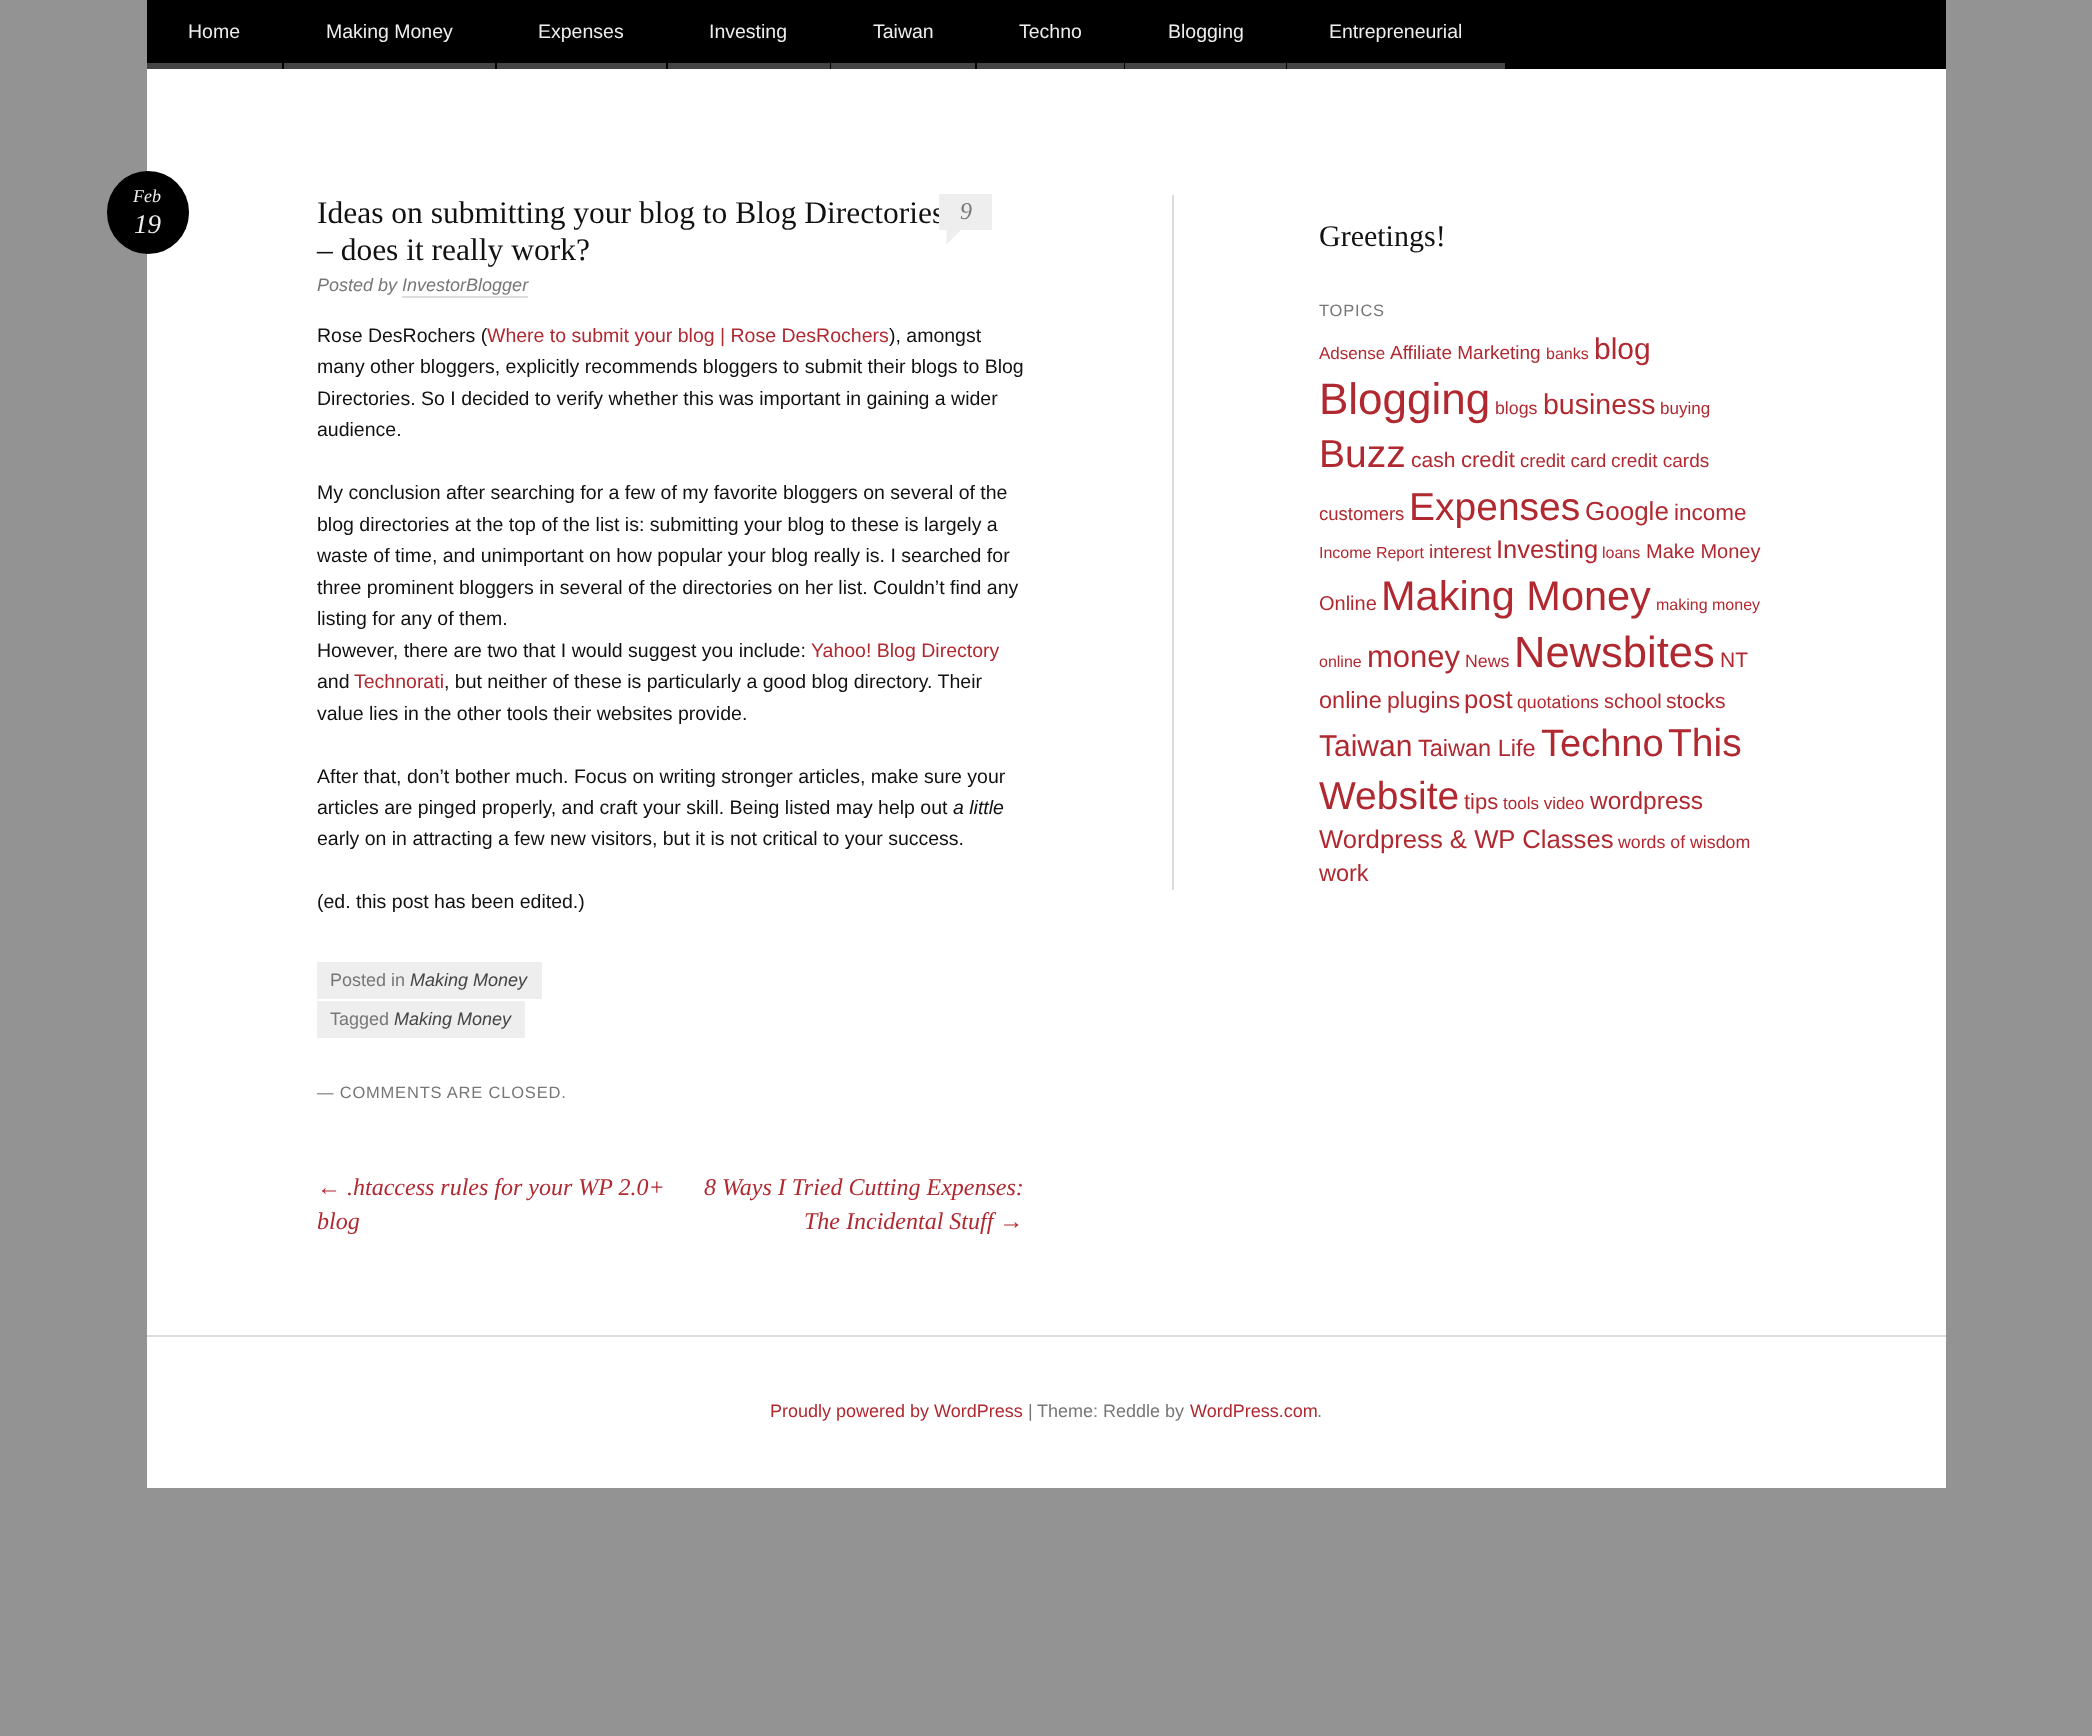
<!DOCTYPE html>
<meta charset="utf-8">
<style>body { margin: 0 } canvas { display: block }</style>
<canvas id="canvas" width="2092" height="1736"></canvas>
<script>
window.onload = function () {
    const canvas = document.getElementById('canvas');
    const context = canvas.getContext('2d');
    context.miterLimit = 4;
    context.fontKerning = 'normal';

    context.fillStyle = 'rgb(147, 147, 147)';
    context.fillRect(0, 0, 2092, 1736);
    context.fillStyle = 'rgb(255, 255, 255)';
    context.fillRect(147, 69, 1799, 1419);
    context.fillStyle = 'rgb(0, 0, 0)';
    context.fillRect(147, 0, 1799, 69);
    context.fillStyle = 'rgb(68, 68, 68)';
    context.fillRect(147, 63, 135, 6);
    context.fillRect(284, 63, 211, 6);
    context.fillRect(497, 63, 169, 6);
    context.fillRect(668, 63, 162, 6);
    context.fillRect(831, 63, 144, 6);
    context.fillRect(977, 63, 147, 6);
    context.fillRect(1125, 63, 161, 6);
    context.fillRect(1287, 63, 218, 6);
    context.fillStyle = 'rgb(0, 0, 0)';
    context.beginPath();
    context.roundRect(107, 171, 82, 83, 41);
    context.fill();
    context.fillStyle = 'rgb(238, 238, 238)';
    context.fillRect(317, 962, 225, 37);
    context.fillRect(317, 1001, 208, 37);
    context.fillStyle = 'rgb(221, 221, 221)';
    context.fillRect(402, 296, 126, 2);
    context.fillRect(1172, 195, 2, 695);
    context.fillRect(147, 1335, 1799, 2);
    context.font = '19.5px Liberation Sans';
    context.fillStyle = 'rgb(238, 238, 238)';
    context.fillText('Home', 188, 38);
    context.fillText('Making Money', 326, 38);
    context.fillText('Expenses', 538, 38);
    context.fillText('Investing', 709, 38);
    context.fillText('Taiwan', 873, 38);
    context.fillText('Techno', 1019, 38);
    context.fillText('Blogging', 1168, 38);
    context.fillText('Entrepreneurial', 1329, 38);
    context.font = 'italic 18px Liberation Serif';
    context.fillText('Feb', 133, 202);
    context.font = 'italic 27px Liberation Serif';
    context.fillText('19', 134, 233);
    context.font = '18px Liberation Sans';
    context.fillStyle = 'rgb(119, 119, 119)';
    context.fillText('Posted in', 330, 986);
    context.font = 'italic 18px Liberation Sans';
    context.fillStyle = 'rgb(68, 68, 68)';
    context.fillText('Making Money', 410, 986);
    context.font = '18px Liberation Sans';
    context.fillStyle = 'rgb(119, 119, 119)';
    context.fillText('Tagged', 330, 1025);
    context.font = 'italic 18px Liberation Sans';
    context.fillStyle = 'rgb(68, 68, 68)';
    context.fillText('Making Money', 394, 1025);
    context.font = '31.5px Liberation Serif';
    context.fillStyle = 'rgb(17, 17, 17)';
    context.fillText('Ideas on submitting your blog to Blog Directories', 317, 223);
    context.fillText('– does it really work?', 317, 260);
    context.fillStyle = 'rgb(238, 238, 238)';
    context.fillRect(939, 194, 53, 36);
    context.font = 'italic 24px Liberation Serif';
    context.fillStyle = 'rgb(119, 119, 119)';
    context.fillText('9', 960, 219);
    context.fillStyle = 'rgb(238, 238, 238)';
    context.beginPath();
    context.moveTo(946.5, 244.5);
    context.lineTo(946.5, 229.5);
    context.lineTo(961.5, 229.5);
    context.closePath();
    context.fill();
    context.font = 'italic 18px Liberation Sans';
    context.fillStyle = 'rgb(119, 119, 119)';
    context.fillText('Posted by InvestorBlogger', 317, 291);
    context.font = '19.5px Liberation Sans';
    context.fillStyle = 'rgb(17, 17, 17)';
    context.fillText('Rose DesRochers (', 317, 342);
    context.fillStyle = 'rgb(177, 41, 48)';
    context.fillText('Where to submit your blog | Rose DesRochers', 487, 342);
    context.fillStyle = 'rgb(17, 17, 17)';
    context.fillText('), amongst', 889, 342);
    context.fillText('many other bloggers, explicitly recommends bloggers to submit their blogs to Blog', 317, 373);
    context.fillText('Directories. So I decided to verify whether this was important in gaining a wider', 317, 405);
    context.fillText('audience.', 317, 436);
    context.fillText('My conclusion after searching for a few of my favorite bloggers on several of the', 317, 499);
    context.fillText('blog directories at the top of the list is: submitting your blog to these is largely a', 317, 531);
    context.fillText('waste of time, and unimportant on how popular your blog really is. I searched for', 317, 562);
    context.fillText('three prominent bloggers in several of the directories on her list. Couldn’t find any', 317, 594);
    context.fillText('listing for any of them.', 317, 625);
    context.fillText('However, there are two that I would suggest you include:', 317, 657);
    context.fillStyle = 'rgb(177, 41, 48)';
    context.fillText('Yahoo! Blog Directory', 811, 657);
    context.fillStyle = 'rgb(17, 17, 17)';
    context.fillText('and', 317, 688);
    context.fillStyle = 'rgb(177, 41, 48)';
    context.fillText('Technorati', 354, 688);
    context.fillStyle = 'rgb(17, 17, 17)';
    context.fillText(', but neither of these is particularly a good blog directory. Their', 444, 688);
    context.fillText('value lies in the other tools their websites provide.', 317, 720);
    context.fillText('After that, don’t bother much. Focus on writing stronger articles, make sure your', 317, 783);
    context.fillText('articles are pinged properly, and craft your skill. Being listed may help out', 317, 814);
    context.font = 'italic 19.5px Liberation Sans';
    context.fillText('a little', 953, 814);
    context.font = '19.5px Liberation Sans';
    context.fillText('early on in attracting a few new visitors, but it is not critical to your success.', 317, 845);
    context.fillText('(ed. this post has been edited.)', 317, 908);
    context.letterSpacing = '0.8px';
    context.font = '16.5px Liberation Sans';
    context.fillStyle = 'rgb(119, 119, 119)';
    context.fillText('— COMMENTS ARE CLOSED.', 317, 1098);
    context.letterSpacing = '0px';
    context.font = 'italic 24px Liberation Serif';
    context.fillStyle = 'rgb(177, 41, 48)';
    context.fillText('← .htaccess rules for your WP 2.0+', 317, 1195);
    context.fillText('blog', 317, 1229);
    context.fillText('8 Ways I Tried Cutting Expenses:', 704, 1195);
    context.fillText('The Incidental Stuff →', 804, 1229);
    context.font = '30px Liberation Serif';
    context.fillStyle = 'rgb(17, 17, 17)';
    context.fillText('Greetings!', 1319, 246);
    context.letterSpacing = '0.8px';
    context.font = '16.5px Liberation Sans';
    context.fillStyle = 'rgb(119, 119, 119)';
    context.fillText('TOPICS', 1319, 316);
    context.letterSpacing = '0px';
    context.font = '17px Liberation Sans';
    context.fillStyle = 'rgb(177, 41, 48)';
    context.fillText('Adsense', 1319, 359);
    context.font = '19px Liberation Sans';
    context.fillText('Affiliate Marketing', 1390, 359);
    context.font = '16px Liberation Sans';
    context.fillText('banks', 1546, 359);
    context.font = '30px Liberation Sans';
    context.fillText('blog', 1594, 359);
    context.font = '44px Liberation Sans';
    context.fillText('Blogging', 1319, 414);
    context.font = '17.75px Liberation Sans';
    context.fillText('blogs', 1495, 414);
    context.font = '28.5px Liberation Sans';
    context.fillText('business', 1543, 414);
    context.font = '17px Liberation Sans';
    context.fillText('buying', 1660, 414);
    context.font = '39px Liberation Sans';
    context.fillText('Buzz', 1319, 467);
    context.font = '21px Liberation Sans';
    context.fillText('cash', 1411, 467);
    context.font = '22px Liberation Sans';
    context.fillText('credit', 1461, 467);
    context.font = '18.5px Liberation Sans';
    context.fillText('credit card', 1520, 467);
    context.font = '19px Liberation Sans';
    context.fillText('credit cards', 1611, 467);
    context.font = '18.5px Liberation Sans';
    context.fillText('customers', 1319, 520);
    context.font = '39px Liberation Sans';
    context.fillText('Expenses', 1409, 520);
    context.font = '26px Liberation Sans';
    context.fillText('Google', 1585, 520);
    context.font = '22.5px Liberation Sans';
    context.fillText('income', 1674, 520);
    context.font = '16px Liberation Sans';
    context.fillText('Income Report', 1319, 558);
    context.font = '19px Liberation Sans';
    context.fillText('interest', 1429, 558);
    context.font = '25.5px Liberation Sans';
    context.fillText('Investing', 1496, 558);
    context.font = '16px Liberation Sans';
    context.fillText('loans', 1602, 558);
    context.font = '20px Liberation Sans';
    context.fillText('Make Money', 1646, 558);
    context.fillText('Online', 1319, 610);
    context.font = '41.5px Liberation Sans';
    context.fillText('Making Money', 1381, 610);
    context.font = '16px Liberation Sans';
    context.fillText('making money', 1656, 610);
    context.fillText('online', 1319, 667);
    context.font = '31px Liberation Sans';
    context.fillText('money', 1367, 667);
    context.font = '17.75px Liberation Sans';
    context.fillText('News', 1465, 667);
    context.font = '43.5px Liberation Sans';
    context.fillText('Newsbites', 1514, 667);
    context.font = '21px Liberation Sans';
    context.fillText('NT', 1720, 667);
    context.font = '23.5px Liberation Sans';
    context.fillText('online', 1319, 708);
    context.font = '23px Liberation Sans';
    context.fillText('plugins', 1387, 708);
    context.font = '25.7px Liberation Sans';
    context.fillText('post', 1464, 708);
    context.font = '17.75px Liberation Sans';
    context.fillText('quotations', 1517, 708);
    context.font = '20px Liberation Sans';
    context.fillText('school', 1604, 708);
    context.font = '21px Liberation Sans';
    context.fillText('stocks', 1666, 708);
    context.font = '30px Liberation Sans';
    context.fillText('Taiwan', 1319, 756);
    context.font = '23.5px Liberation Sans';
    context.fillText('Taiwan Life', 1418, 756);
    context.font = '38px Liberation Sans';
    context.fillText('Techno', 1541, 756);
    context.font = '39px Liberation Sans';
    context.fillText('This', 1668, 756);
    context.fillText('Website', 1319, 809);
    context.font = '22px Liberation Sans';
    context.fillText('tips', 1464, 809);
    context.font = '17px Liberation Sans';
    context.fillText('tools video', 1503, 809);
    context.font = '24.5px Liberation Sans';
    context.fillText('wordpress', 1590, 809);
    context.font = '25.7px Liberation Sans';
    context.fillText('Wordpress & WP Classes', 1319, 848);
    context.font = '17.75px Liberation Sans';
    context.fillText('words of wisdom', 1618, 848);
    context.font = '23.5px Liberation Sans';
    context.fillText('work', 1319, 881);
    context.font = '18px Liberation Sans';
    context.fillText('Proudly powered by WordPress', 770, 1417);
    context.fillStyle = 'rgb(119, 119, 119)';
    context.fillText('|', 1028, 1417);
    context.fillText('Theme: Reddle by', 1037, 1417);
    context.fillStyle = 'rgb(177, 41, 48)';
    context.fillText('WordPress.com', 1190, 1417);
    context.fillStyle = 'rgb(119, 119, 119)';
    context.fillText('.', 1317, 1417);
};
</script>
